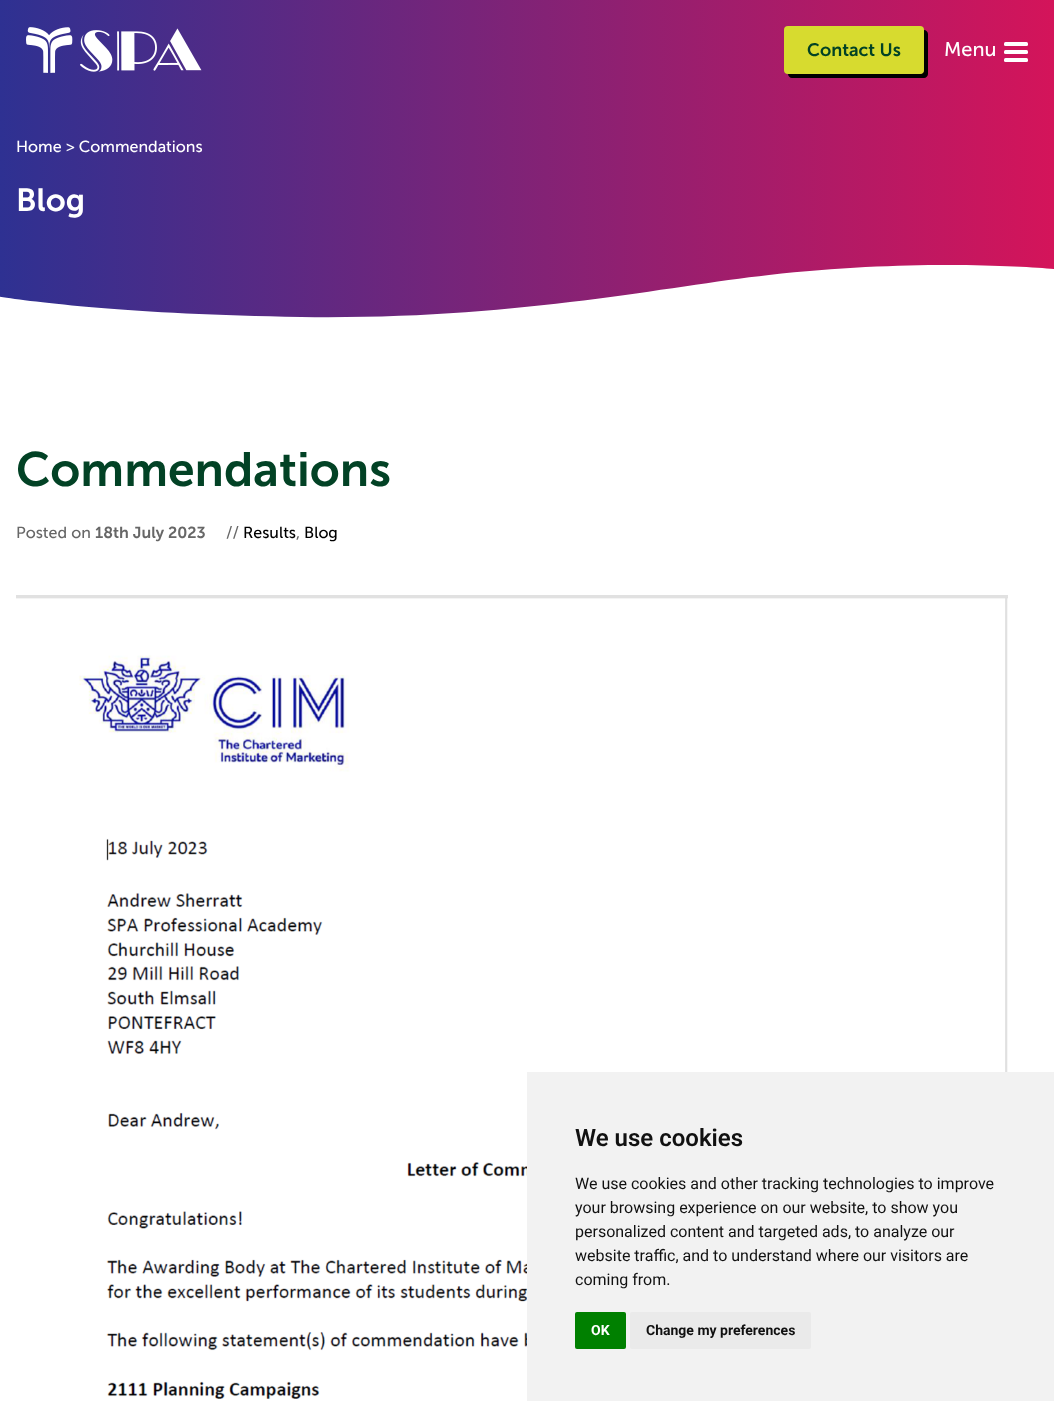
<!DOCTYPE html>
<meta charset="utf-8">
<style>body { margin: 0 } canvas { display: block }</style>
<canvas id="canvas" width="1054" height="1401"></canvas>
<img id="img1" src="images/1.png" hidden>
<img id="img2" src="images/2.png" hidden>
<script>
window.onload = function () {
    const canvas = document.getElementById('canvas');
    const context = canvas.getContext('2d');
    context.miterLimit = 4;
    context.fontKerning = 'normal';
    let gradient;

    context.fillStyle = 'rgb(255, 255, 255)';
    context.fillRect(0, 0, 1054, 1401);
    gradient = context.createLinearGradient(0, 160, 1054, 160);
    gradient.addColorStop(0, 'rgb(46, 49, 146)');
    gradient.addColorStop(1, 'rgb(212, 20, 90)');
    context.fillStyle = gradient;
    context.fillRect(0, 0, 1054, 318);
    context.drawImage(document.getElementById('img1'), 26, 27, 176, 46);
    context.fillStyle = 'rgb(0, 0, 0)';
    context.beginPath();
    context.moveTo(788, 74);
    context.bezierCurveTo(788, 76, 790, 78, 792, 78);
    context.lineTo(924, 78);
    context.bezierCurveTo(926, 78, 928, 76, 928, 74);
    context.lineTo(928, 34);
    context.bezierCurveTo(928, 32, 926, 30, 924, 30);
    context.lineTo(924, 70);
    context.bezierCurveTo(924, 72, 922, 74, 920, 74);
    context.closePath();
    context.fill();
    context.fillStyle = 'rgb(215, 219, 47)';
    context.beginPath();
    context.roundRect(784, 26, 140, 48, 4);
    context.fill();
    context.fillStyle = 'rgb(255, 255, 255)';
    context.beginPath();
    context.roundRect(1004, 50, 24, 4, 1.5);
    context.fill();
    context.beginPath();
    context.roundRect(1004, 42, 24, 4, 1.5);
    context.fill();
    context.beginPath();
    context.roundRect(1004, 58, 24, 4, 1.5);
    context.fill();
    context.save();
    context.beginPath();
    context.rect(0, 265, 1054, 55);
    context.clip();
    context.beginPath();
    context.moveTo(-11, 295);
    context.bezierCurveTo(-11, 295, 90, 314, 301, 317);
    context.bezierCurveTo(513, 320, 661, 287, 769, 275);
    context.bezierCurveTo(938, 256, 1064, 270, 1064, 270);
    context.lineTo(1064, 321);
    context.lineTo(-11, 321);
    context.closePath();
    context.fill();
    context.restore();
    context.drawImage(document.getElementById('img2'), 16, 595, 992, 806);
    context.fillStyle = 'rgb(242, 242, 242)';
    context.fillRect(527, 1072, 527, 329);
    context.fillStyle = 'rgb(0, 128, 0)';
    context.beginPath();
    context.roundRect(575, 1312, 51, 37, 2);
    context.fill();
    context.fillStyle = 'rgb(234, 234, 234)';
    context.beginPath();
    context.roundRect(630, 1312, 181, 37, 2);
    context.fill();
    context.font = '600 18px Museo Sans';
    context.fillStyle = 'rgb(2, 66, 37)';
    context.fillText('Contact Us', 807, 56);
    context.font = '20px Museo Sans';
    context.fillStyle = 'rgb(255, 255, 255)';
    context.fillText('Menu', 944, 56);
    context.font = '16px Museo Sans';
    context.fillText('Home > Commendations', 16, 152);
    context.font = '600 32px Museo Sans';
    context.fillText('Blog', 16, 211);
    context.font = '600 48px Museo Sans';
    context.fillStyle = 'rgb(2, 66, 37)';
    context.fillText('Commendations', 16, 486);
    context.font = '16px Museo Sans';
    context.fillStyle = 'rgb(103, 103, 103)';
    context.fillText('Posted on', 16, 538);
    context.font = '600 16px Museo Sans';
    context.fillText('18th July 2023', 95, 538);
    context.font = '16px Museo Sans';
    context.fillText('//', 226, 538);
    context.fillStyle = 'rgb(0, 0, 0)';
    context.fillText('Results', 243, 538);
    context.fillStyle = 'rgb(103, 103, 103)';
    context.fillText(',', 296, 538);
    context.fillStyle = 'rgb(0, 0, 0)';
    context.fillText('Blog', 304, 538);
    context.font = '600 24px Roboto';
    context.fillStyle = 'rgb(17, 17, 17)';
    context.fillText('We use cookies', 575, 1146);
    context.font = '16px Roboto';
    context.fillText('We use cookies and other tracking technologies to improve', 575, 1189);
    context.fillText('your browsing experience on our website, to show you', 575, 1213);
    context.fillText('personalized content and targeted ads, to analyze our', 575, 1237);
    context.fillText('website traffic, and to understand where our visitors are', 575, 1261);
    context.fillText('coming from.', 575, 1285);
    context.font = 'bold 14px Roboto';
    context.fillStyle = 'rgb(255, 255, 255)';
    context.fillText('OK', 591, 1335);
    context.fillStyle = 'rgb(17, 17, 17)';
    context.fillText('Change my preferences', 646, 1335);
};
</script>
